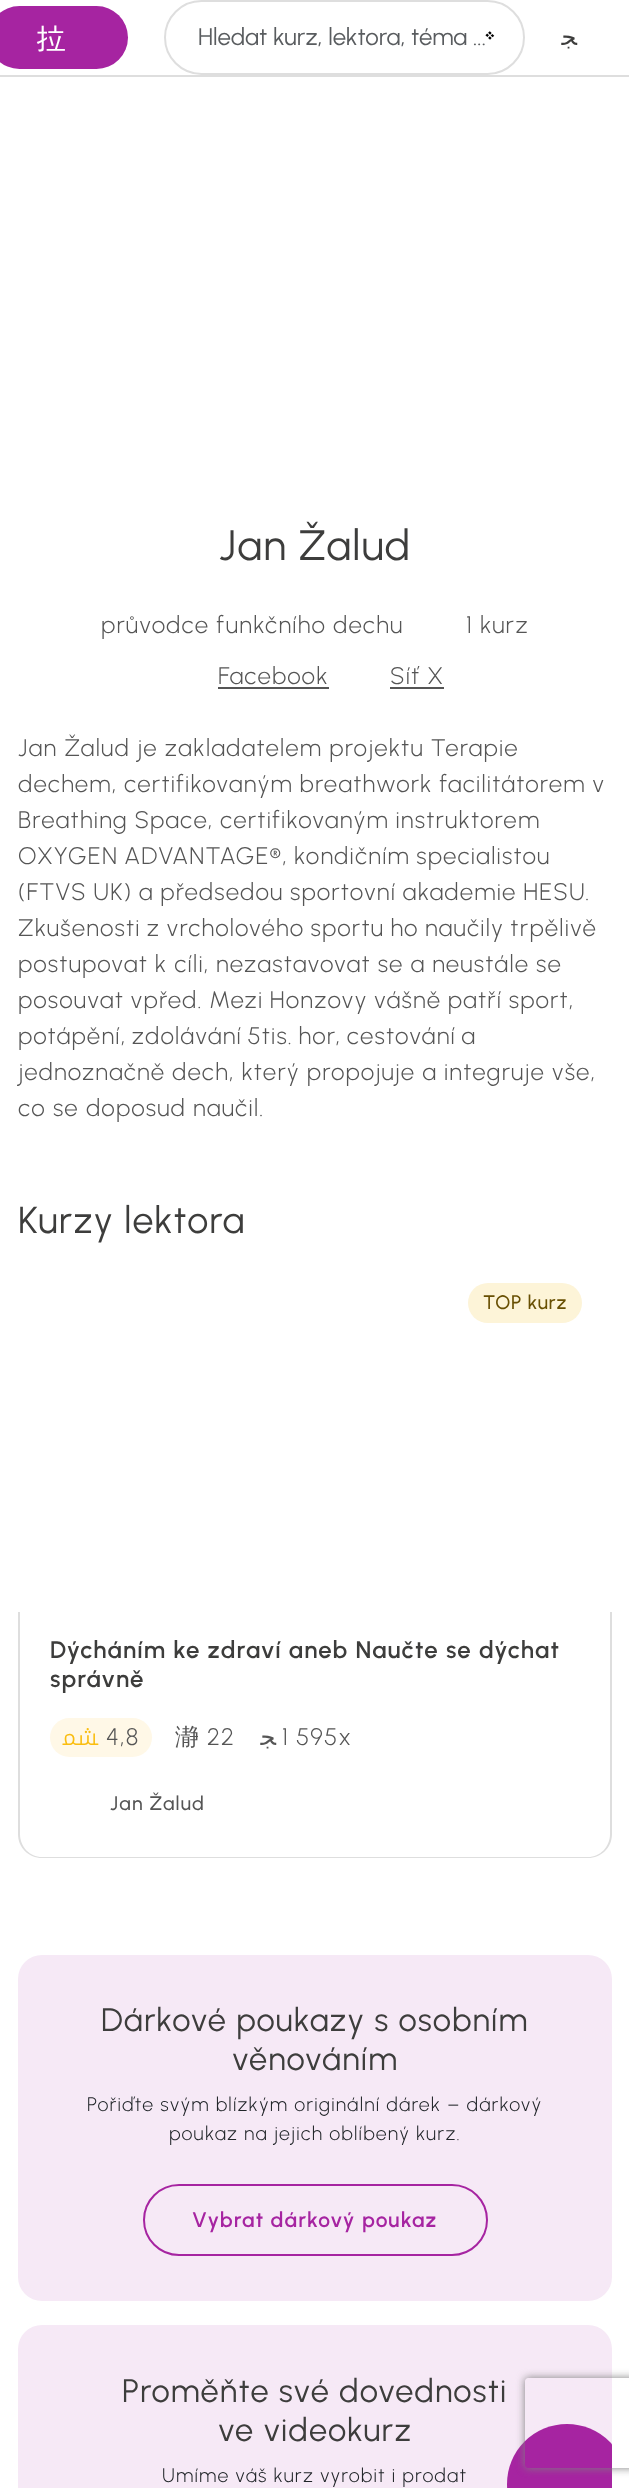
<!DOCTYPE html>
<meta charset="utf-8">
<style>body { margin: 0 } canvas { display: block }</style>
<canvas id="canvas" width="629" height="2488"></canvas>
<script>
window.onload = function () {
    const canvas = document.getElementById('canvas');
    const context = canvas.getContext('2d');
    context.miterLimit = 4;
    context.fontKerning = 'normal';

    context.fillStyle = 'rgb(255, 255, 255)';
    context.fillRect(0, 0, 629, 2488);
    context.fillStyle = 'rgb(222, 222, 222)';
    context.fillRect(0, 75, 629, 2);
    context.fillStyle = 'rgb(166, 36, 161)';
    context.beginPath();
    context.roundRect(-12, 6, 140, 63, 31.5);
    context.fill();
    context.beginPath();
    context.roundRect(165, 1, 359, 73, 36.5);
    context.strokeStyle = 'rgb(222, 222, 222)';
    context.lineWidth = 2;
    context.stroke();
    context.fillStyle = 'rgb(85, 85, 85)';
    context.fillRect(218, 687, 111, 2);
    context.fillRect(390, 687, 54, 2);
    context.fillStyle = 'rgb(253, 244, 216)';
    context.beginPath();
    context.roundRect(468, 1283, 114, 40, 20);
    context.fill();
    context.fillStyle = 'rgb(222, 222, 222)';
    context.beginPath();
    context.moveTo(18, 1612);
    context.lineTo(612, 1612);
    context.lineTo(612, 1834);
    context.bezierCurveTo(612, 1848, 601, 1858, 588, 1858);
    context.lineTo(42, 1858);
    context.bezierCurveTo(29, 1858, 18, 1848, 18, 1834);
    context.closePath();
    context.moveTo(20, 1612);
    context.lineTo(610, 1612);
    context.lineTo(610, 1834);
    context.bezierCurveTo(610, 1847, 600, 1857, 588, 1857);
    context.lineTo(42, 1857);
    context.bezierCurveTo(30, 1857, 20, 1847, 20, 1834);
    context.closePath();
    context.fill('evenodd');
    context.fillStyle = 'rgb(255, 248, 231)';
    context.beginPath();
    context.roundRect(50, 1718, 102, 39, 19.5);
    context.fill();
    context.fillStyle = 'rgb(246, 233, 246)';
    context.beginPath();
    context.roundRect(18, 1955, 594, 346, 24);
    context.fill();
    context.beginPath();
    context.roundRect(144, 2185, 343, 70, 35);
    context.strokeStyle = 'rgb(166, 36, 161)';
    context.stroke();
    context.beginPath();
    context.roundRect(18, 2325, 594, 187, 24);
    context.fill();
    context.save();
    context.beginPath();
    context.roundRect(18, 2325, 594, 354, 24);
    context.clip();
    context.fillStyle = 'rgb(166, 36, 161)';
    context.beginPath();
    context.arc(567, 2484, 60, 0, 2 * Math.PI);
    context.fill();
    context.restore();
    context.save();
    context.beginPath();
    context.moveTo(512, 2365);
    context.lineTo(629, 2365);
    context.lineTo(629, 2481);
    context.lineTo(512, 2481);
    context.closePath();
    context.moveTo(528, 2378);
    context.lineTo(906, 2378);
    context.bezierCurveTo(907.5, 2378, 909, 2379.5, 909, 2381);
    context.lineTo(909, 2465);
    context.bezierCurveTo(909, 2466.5, 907.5, 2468, 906, 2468);
    context.lineTo(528, 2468);
    context.bezierCurveTo(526.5, 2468, 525, 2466.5, 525, 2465);
    context.lineTo(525, 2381);
    context.bezierCurveTo(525, 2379.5, 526.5, 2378, 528, 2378);
    context.closePath();
    context.clip('evenodd');
    context.fillStyle = 'rgb(128, 128, 128)';
    context.filter = 'blur(4px)';
    context.beginPath();
    context.roundRect(525, 2378, 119, 90, 3);
    context.fill();
    context.filter = 'none';
    context.restore();
    context.letterSpacing = '1.2px';
    context.font = '500 30px WenQuanYi Zen Hei';
    context.fillStyle = 'rgb(255, 255, 255)';
    context.fillText('拉', 36, 48);
    context.letterSpacing = '0px';
    context.font = '24px Urbanist';
    context.fillStyle = 'rgb(89, 92, 95)';
    context.fillText('Hledat kurz, lektora, téma ...', 198, 45);
    context.direction = 'rtl';
    context.font = '33px FreeSerif';
    context.fillStyle = 'rgb(0, 0, 0)';
    context.fillText('﮺', 497, 47);
    context.letterSpacing = '1.2px';
    context.font = '24px DejaVu Sans';
    context.fillStyle = 'rgb(61, 61, 60)';
    context.fillText('ﺠ', 577, 45);
    context.direction = 'ltr';
    context.font = '42.5px Urbanist';
    context.fillText('Jan Žalud', 219, 560);
    context.font = '300 24px Urbanist';
    context.fillStyle = 'rgb(85, 85, 85)';
    context.fillText('průvodce funkčního dechu', 101, 633);
    context.fillText('1 kurz', 466, 633);
    context.fillText('Facebook', 218, 684);
    context.fillText('Síť X', 390, 684);
    context.fillText('Jan Žalud je zakladatelem projektu Terapie', 18, 756);
    context.wordSpacing = '-0.5px';
    context.fillText('dechem, certifikovaným breathwork facilitátorem v', 18, 792);
    context.fillText('Breathing Space, certifikovaným instruktorem', 18, 828);
    context.wordSpacing = '-0.75px';
    context.fillText('OXYGEN ADVANTAGE®, kondičním specialistou', 18, 864);
    context.wordSpacing = '-0.5px';
    context.fillText('(FTVS UK) a předsedou sportovní akademie HESU.', 18, 900);
    context.wordSpacing = '-0.75px';
    context.fillText('Zkušenosti z vrcholového sportu ho naučily trpělivě', 18, 936);
    context.wordSpacing = '-0.25px';
    context.fillText('postupovat k cíli, nezastavovat se a neustále se', 18, 972);
    context.wordSpacing = '-0.5px';
    context.fillText('posouvat vpřed. Mezi Honzovy vášně patří sport,', 18, 1008);
    context.wordSpacing = '-1.5px';
    context.fillText('potápění, zdolávání 5tis. hor, cestování a', 18, 1044);
    context.wordSpacing = '-0.25px';
    context.fillText('jednoznačně dech, který propojuje a integruje vše,', 18, 1080);
    context.wordSpacing = '0px';
    context.fillText('co se doposud naučil.', 18, 1116);
    context.font = '37.5px Urbanist';
    context.fillStyle = 'rgb(61, 61, 60)';
    context.fillText('Kurzy lektora', 18, 1233);
    context.letterSpacing = '0.75px';
    context.font = '500 19.5px Urbanist';
    context.fillStyle = 'rgb(104, 79, 3)';
    context.fillText('TOP kurz', 483, 1309);
    context.letterSpacing = '1.2px';
    context.font = '600 24px Urbanist';
    context.fillStyle = 'rgb(61, 61, 60)';
    context.fillText('Dýcháním ke zdraví aneb Naučte se dýchat', 50, 1658);
    context.fillText('správně', 50, 1687);
    context.direction = 'rtl';
    context.font = '300 24px Noto Kufi Arabic';
    context.fillStyle = 'rgb(250, 189, 16)';
    context.fillText('ﳩ', 98, 1745);
    context.direction = 'ltr';
    context.font = '300 24px Urbanist';
    context.fillStyle = 'rgb(85, 85, 85)';
    context.fillText('4,8', 106, 1745);
    context.font = '500 24px WenQuanYi Zen Hei';
    context.fillText('瀞', 175, 1745);
    context.font = '300 24px Urbanist';
    context.fillText('22', 207, 1745);
    context.direction = 'rtl';
    context.font = '24px DejaVu Sans';
    context.fillText('ﺠ', 276, 1745);
    context.direction = 'ltr';
    context.font = '300 24px Urbanist';
    context.fillText('1 595x', 282, 1745);
    context.font = '500 19.5px Urbanist';
    context.fillText('Jan Žalud', 110, 1810);
    context.font = '32.5px Urbanist';
    context.fillStyle = 'rgb(61, 61, 60)';
    context.fillText('Dárkové poukazy s osobním', 101, 2031);
    context.fillText('věnováním', 232, 2070);
    context.font = '300 19.5px Urbanist';
    context.fillStyle = 'rgb(33, 37, 41)';
    context.fillText('Pořiďte svým blízkým originální dárek – dárkový', 87, 2111);
    context.fillText('poukaz na jejich oblíbený kurz.', 169, 2140);
    context.font = '600 21px Urbanist';
    context.fillStyle = 'rgb(166, 36, 161)';
    context.fillText('Vybrat dárkový poukaz', 192, 2227);
    context.font = '32.5px Urbanist';
    context.fillStyle = 'rgb(61, 61, 60)';
    context.fillText('Proměňte své dovednosti', 122, 2402);
    context.fillText('ve videokurz', 218, 2441);
    context.font = '300 19.5px Urbanist';
    context.fillStyle = 'rgb(33, 37, 41)';
    context.fillText('Umíme váš kurz vyrobit i prodat', 162, 2482);
};
</script>
